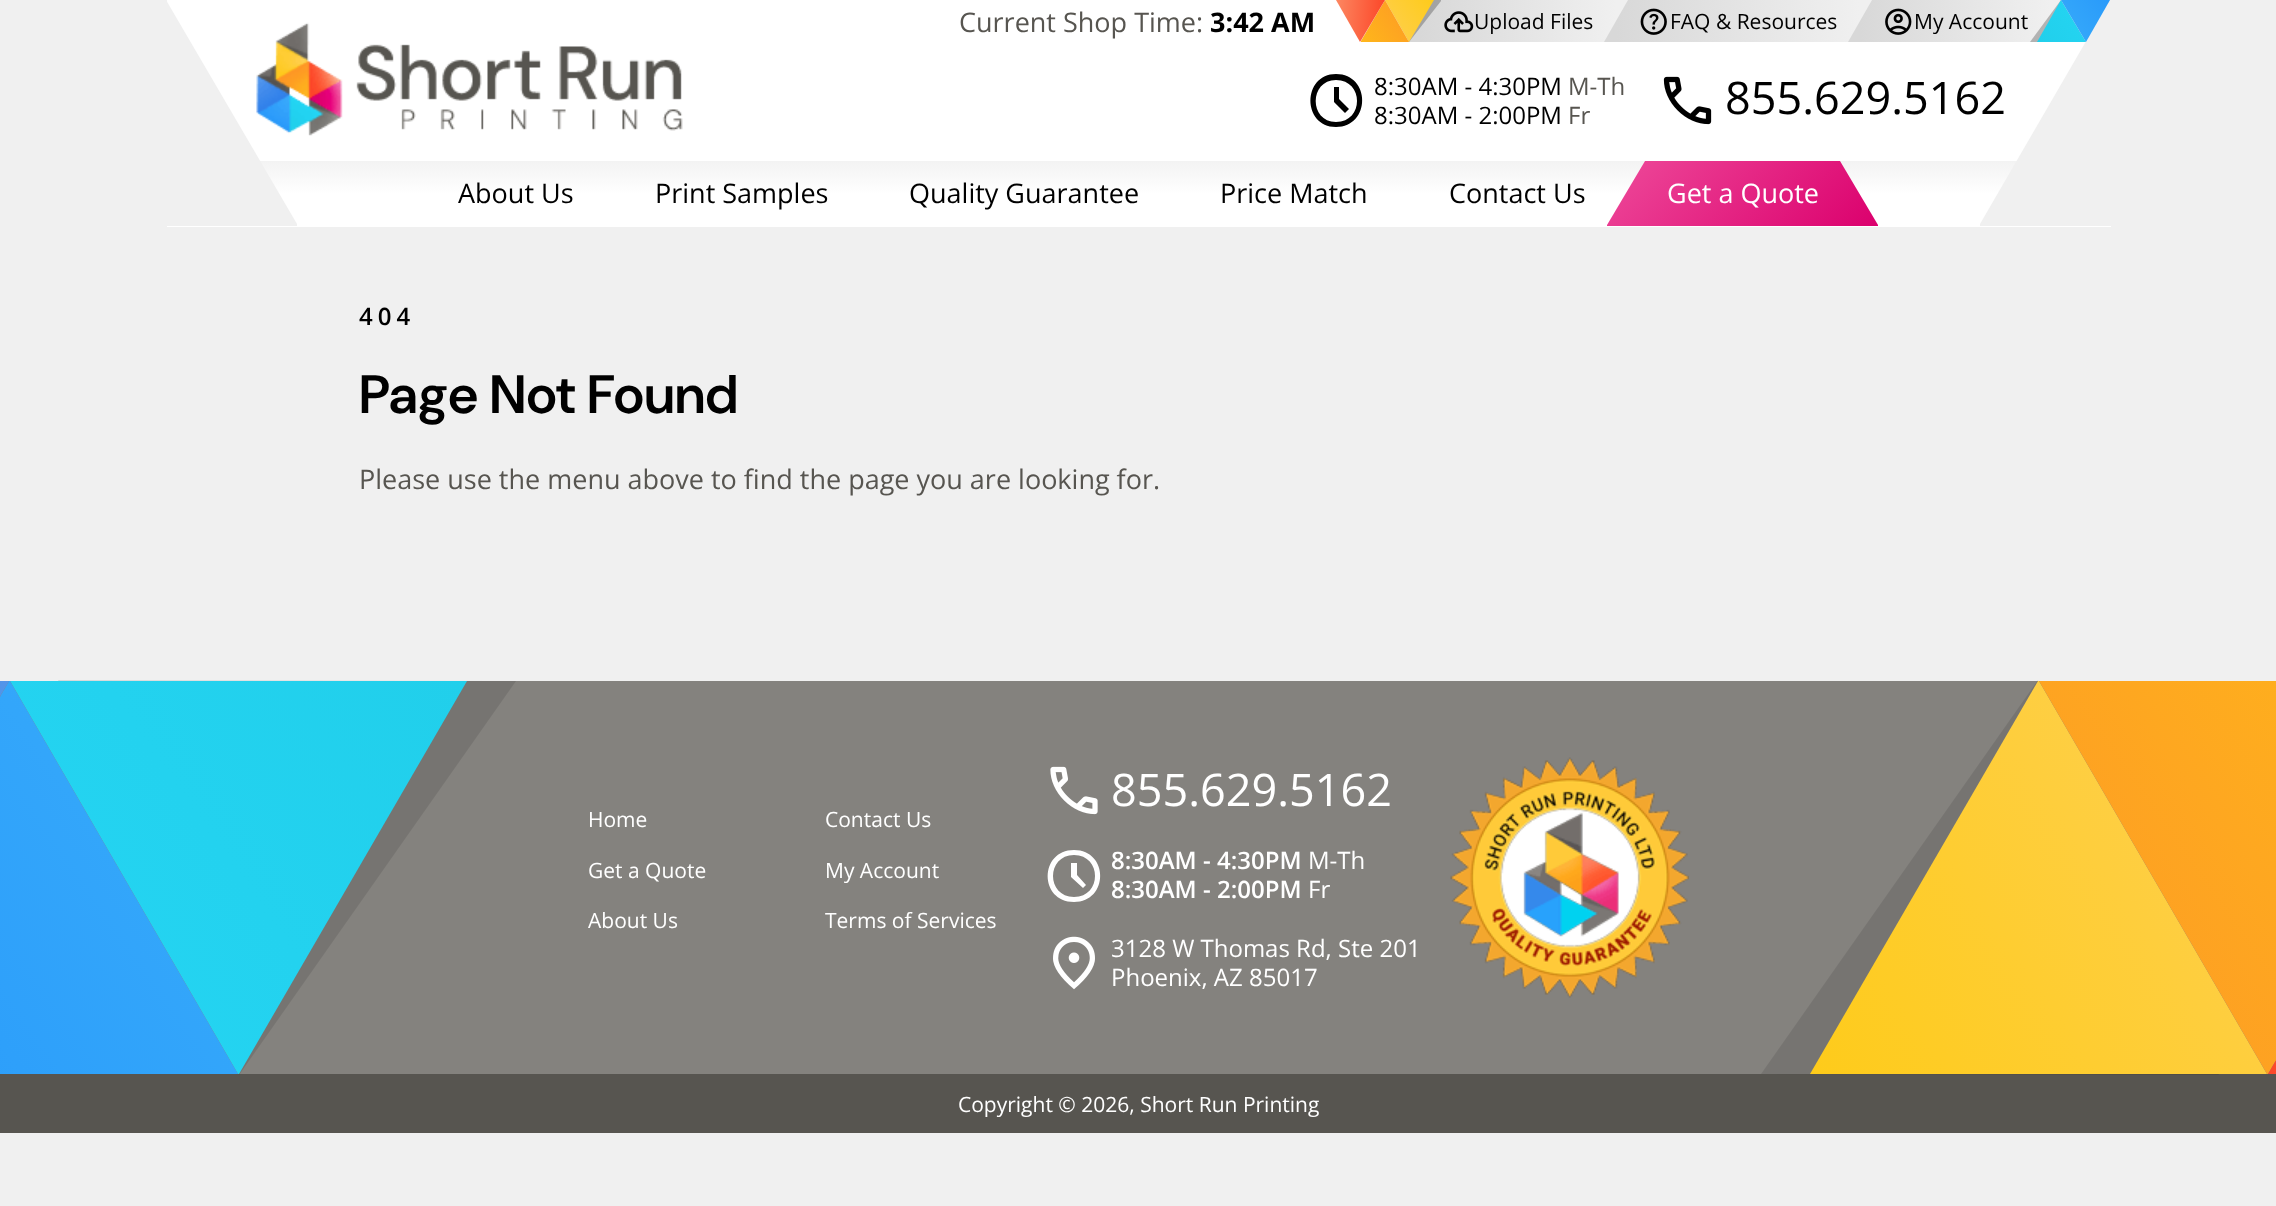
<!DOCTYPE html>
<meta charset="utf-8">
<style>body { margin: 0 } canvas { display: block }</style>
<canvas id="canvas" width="2276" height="1206"></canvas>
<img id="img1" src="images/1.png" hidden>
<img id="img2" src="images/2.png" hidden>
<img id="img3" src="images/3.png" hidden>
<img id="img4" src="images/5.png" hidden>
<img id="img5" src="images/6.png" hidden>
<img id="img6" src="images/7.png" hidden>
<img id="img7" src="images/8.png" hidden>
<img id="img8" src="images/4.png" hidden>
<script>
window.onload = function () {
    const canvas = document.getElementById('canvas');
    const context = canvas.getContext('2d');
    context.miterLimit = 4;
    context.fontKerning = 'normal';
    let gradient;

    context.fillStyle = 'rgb(240, 240, 240)';
    context.fillRect(0, 0, 2276, 1206);
    context.fillStyle = 'rgb(255, 255, 255)';
    context.fillRect(167, 0, 1919, 161);
    context.drawImage(document.getElementById('img1'), 256, 22, 427, 114);
    gradient = context.createLinearGradient(1139, 227, 1139, 161);
    gradient.addColorStop(0.5, 'rgb(255, 255, 255)');
    gradient.addColorStop(1, 'rgb(243, 243, 243)');
    context.fillStyle = gradient;
    context.fillRect(167, 161, 1944, 66);
    context.fillStyle = 'rgb(240, 240, 240)';
    context.beginPath();
    context.moveTo(166, 0);
    context.lineTo(297, 224);
    context.lineTo(297, 226);
    context.lineTo(35, 226);
    context.closePath();
    context.fill();
    context.fillRect(1361, 0, 725, 42);
    gradient = context.createLinearGradient(1420, 21, 1616, 21);
    gradient.addColorStop(0, 'rgb(216, 216, 216)');
    gradient.addColorStop(1, 'rgb(240, 240, 240)');
    context.fillStyle = gradient;
    context.beginPath();
    context.moveTo(1432, 0);
    context.lineTo(1628, 0);
    context.lineTo(1604, 42);
    context.lineTo(1408, 42);
    context.closePath();
    context.fill();
    context.fillStyle = 'rgba(0, 0, 0, 0.25)';
    context.beginPath();
    context.moveTo(1441, 1);
    context.lineTo(1409, 42);
    context.lineTo(1392, 0);
    context.lineTo(1441, 0);
    context.closePath();
    context.fill();
    gradient = context.createLinearGradient(1383, 40, 1436, 2.6);
    gradient.addColorStop(0, 'rgb(254, 208, 84)');
    gradient.addColorStop(1, 'rgb(254, 203, 26)');
    context.fillStyle = gradient;
    context.beginPath();
    context.moveTo(1385, 0);
    context.lineTo(1434, 0);
    context.lineTo(1409, 42);
    context.closePath();
    context.fill();
    gradient = context.createLinearGradient(1412, 2.5, 1359, 40);
    gradient.addColorStop(0, 'rgb(253, 152, 37)');
    gradient.addColorStop(1, 'rgb(255, 183, 27)');
    context.fillStyle = gradient;
    context.beginPath();
    context.moveTo(1385, 0);
    context.lineTo(1361, 41);
    context.lineTo(1361, 42);
    context.lineTo(1409, 42);
    context.closePath();
    context.fill();
    gradient = context.createLinearGradient(1386, 23, 1334, 19);
    gradient.addColorStop(0, 'rgb(252, 68, 38)');
    gradient.addColorStop(1, 'rgb(252, 136, 98)');
    context.fillStyle = gradient;
    context.beginPath();
    context.moveTo(1360, 42);
    context.lineTo(1336, 0);
    context.lineTo(1385, 0);
    context.closePath();
    context.fill();
    context.drawImage(document.getElementById('img2'), 1444, 11, 30, 22);
    gradient = context.createLinearGradient(1616, 21, 1860, 21);
    gradient.addColorStop(0, 'rgb(216, 216, 216)');
    gradient.addColorStop(1, 'rgb(240, 240, 240)');
    context.fillStyle = gradient;
    context.beginPath();
    context.moveTo(1628, 0);
    context.lineTo(1872, 0);
    context.lineTo(1848, 42);
    context.lineTo(1604, 42);
    context.closePath();
    context.fill();
    context.drawImage(document.getElementById('img3'), 1640, 8, 27, 27);
    context.fillStyle = 'rgb(0, 0, 0)';
    context.beginPath();
    context.moveTo(1345, 113);
    context.lineTo(1349, 109);
    context.lineTo(1339, 99);
    context.lineTo(1339, 87);
    context.lineTo(1334, 87);
    context.lineTo(1334, 102);
    context.closePath();
    context.moveTo(1336, 127);
    context.bezierCurveTo(1302, 127, 1302, 74, 1336, 74);
    context.bezierCurveTo(1371, 74, 1371, 127, 1336, 127);
    context.closePath();
    context.moveTo(1336, 100);
    context.closePath();
    context.moveTo(1336, 122);
    context.bezierCurveTo(1364, 122, 1364, 80, 1336, 80);
    context.bezierCurveTo(1309, 80, 1309, 122, 1336, 122);
    context.closePath();
    context.fill();
    context.drawImage(document.getElementById('img4'), 1663, 76, 49, 49);
    gradient = context.createLinearGradient(1658, 109, 1827, 278);
    gradient.addColorStop(0, 'rgb(238, 74, 154)');
    gradient.addColorStop(1, 'rgb(219, 0, 109)');
    context.fillStyle = gradient;
    context.beginPath();
    context.moveTo(1607, 225);
    context.lineTo(1645, 161);
    context.lineTo(1840, 161);
    context.lineTo(1878, 225);
    context.lineTo(1878, 226);
    context.lineTo(1607, 226);
    context.closePath();
    context.fill();
    context.fillStyle = 'rgb(132, 130, 126)';
    context.fillRect(0, 681, 2276, 393);
    context.fillStyle = 'rgb(87, 85, 80)';
    context.fillRect(0, 1074, 2276, 59);
    context.fillStyle = 'rgba(0, 0, 0, 0.1)';
    context.beginPath();
    context.moveTo(239, 1075);
    context.lineTo(58, 680);
    context.lineTo(516, 681);
    context.closePath();
    context.fill();
    gradient = context.createLinearGradient(-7.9, 1050, 485, 705);
    gradient.addColorStop(0, 'rgb(37, 213, 243)');
    gradient.addColorStop(1, 'rgb(33, 207, 235)');
    context.fillStyle = gradient;
    context.beginPath();
    context.moveTo(467, 681);
    context.lineTo(239, 1074);
    context.lineTo(238, 1074);
    context.lineTo(10, 681);
    context.closePath();
    context.fill();
    gradient = context.createLinearGradient(255, 705, -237, 1050);
    gradient.addColorStop(0, 'rgb(56, 172, 250)');
    gradient.addColorStop(1, 'rgb(41, 154, 250)');
    context.fillStyle = gradient;
    context.beginPath();
    context.moveTo(-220, 1074);
    context.lineTo(9, 681);
    context.lineTo(10, 681);
    context.lineTo(238, 1074);
    context.closePath();
    context.fill();
    gradient = context.createLinearGradient(25, 899, -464, 856);
    gradient.addColorStop(0, 'rgb(85, 150, 233)');
    gradient.addColorStop(1, 'rgb(49, 130, 234)');
    context.fillStyle = gradient;
    context.beginPath();
    context.moveTo(-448, 681);
    context.lineTo(9, 681);
    context.lineTo(-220, 1074);
    context.lineTo(-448, 682);
    context.closePath();
    context.fill();
    context.drawImage(document.getElementById('img5'), 1050, 766, 48, 49);
    context.fillStyle = 'rgb(255, 255, 255)';
    context.beginPath();
    context.moveTo(1083, 888);
    context.lineTo(1086, 885);
    context.lineTo(1077, 875);
    context.lineTo(1077, 863);
    context.lineTo(1071, 863);
    context.lineTo(1071, 877);
    context.closePath();
    context.moveTo(1074, 902);
    context.bezierCurveTo(1039, 902, 1039, 850, 1074, 850);
    context.bezierCurveTo(1109, 850, 1109, 902, 1074, 902);
    context.closePath();
    context.moveTo(1074, 876);
    context.closePath();
    context.moveTo(1074, 897);
    context.bezierCurveTo(1102, 897, 1102, 855, 1074, 855);
    context.bezierCurveTo(1046, 855, 1046, 897, 1074, 897);
    context.closePath();
    context.fill();
    context.drawImage(document.getElementById('img6'), 1053, 936, 42, 54);
    context.drawImage(document.getElementById('img7'), 1450, 757, 239, 241);
    context.fillStyle = 'rgba(0, 0, 0, 0.1)';
    context.beginPath();
    context.moveTo(2038, 680);
    context.lineTo(2219, 1075);
    context.lineTo(1761, 1074);
    context.closePath();
    context.fill();
    gradient = context.createLinearGradient(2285, 705, 1792, 1050);
    gradient.addColorStop(0, 'rgb(254, 208, 84)');
    gradient.addColorStop(1, 'rgb(254, 203, 26)');
    context.fillStyle = gradient;
    context.beginPath();
    context.moveTo(1810, 1074);
    context.lineTo(2038, 681);
    context.lineTo(2039, 681);
    context.lineTo(2267, 1074);
    context.closePath();
    context.fill();
    gradient = context.createLinearGradient(2021, 1050, 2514, 705);
    gradient.addColorStop(0, 'rgb(253, 152, 37)');
    gradient.addColorStop(1, 'rgb(255, 183, 27)');
    context.fillStyle = gradient;
    context.beginPath();
    context.moveTo(2039, 681);
    context.lineTo(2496, 681);
    context.lineTo(2268, 1074);
    context.lineTo(2267, 1074);
    context.closePath();
    context.fill();
    gradient = context.createLinearGradient(2253, 856, 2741, 899);
    gradient.addColorStop(0, 'rgb(252, 68, 38)');
    gradient.addColorStop(1, 'rgb(252, 136, 98)');
    context.fillStyle = gradient;
    context.beginPath();
    context.moveTo(2268, 1074);
    context.lineTo(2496, 681);
    context.lineTo(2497, 681);
    context.lineTo(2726, 1074);
    context.closePath();
    context.fill();
    context.font = '27px Open Sans';
    context.fillStyle = 'rgb(87, 85, 80)';
    context.fillText('Current Shop Time:', 959, 32);
    context.font = 'bold 27px Open Sans';
    context.fillStyle = 'rgb(0, 0, 0)';
    context.fillText('3:42 AM', 1210, 32);
    context.font = '21px Open Sans';
    context.fillText('Upload Files', 1474, 29);
    context.fillText('FAQ & Resources', 1670, 29);
    context.font = '24px Open Sans';
    context.fillText('8:30AM - 4:30PM', 1374, 95);
    context.fillStyle = 'rgb(87, 85, 80)';
    context.fillText('M-Th', 1568, 95);
    context.fillStyle = 'rgb(0, 0, 0)';
    context.fillText('8:30AM - 2:00PM', 1374, 124);
    context.fillStyle = 'rgb(87, 85, 80)';
    context.fillText('Fr', 1568, 124);
    context.font = '45px Open Sans';
    context.fillStyle = 'rgb(0, 0, 0)';
    context.fillText('855.629.5162', 1725, 114);
    context.fillStyle = 'rgb(240, 240, 240)';
    context.beginPath();
    context.moveTo(2110, 0);
    context.lineTo(1980, 224);
    context.lineTo(1980, 226);
    context.lineTo(2242, 226);
    context.closePath();
    context.fill();
    gradient = context.createLinearGradient(1860, 21, 2051, 21);
    gradient.addColorStop(0, 'rgb(216, 216, 216)');
    gradient.addColorStop(1, 'rgb(240, 240, 240)');
    context.fillStyle = gradient;
    context.beginPath();
    context.moveTo(1872, 0);
    context.lineTo(2063, 0);
    context.lineTo(2038, 42);
    context.lineTo(1848, 42);
    context.closePath();
    context.fill();
    context.fillStyle = 'rgba(0, 0, 0, 0.25)';
    context.beginPath();
    context.moveTo(2061, 0);
    context.lineTo(2078, 42);
    context.lineTo(2030, 42);
    context.closePath();
    context.fill();
    gradient = context.createLinearGradient(2088, 2.5, 2035, 40);
    gradient.addColorStop(0, 'rgb(37, 213, 243)');
    gradient.addColorStop(1, 'rgb(33, 207, 235)');
    context.fillStyle = gradient;
    context.beginPath();
    context.moveTo(2061, 0);
    context.lineTo(2037, 42);
    context.lineTo(2086, 42);
    context.closePath();
    context.fill();
    gradient = context.createLinearGradient(2060, 40, 2112, 2.6);
    gradient.addColorStop(0, 'rgb(56, 172, 250)');
    gradient.addColorStop(1, 'rgb(41, 154, 250)');
    context.fillStyle = gradient;
    context.beginPath();
    context.moveTo(2086, 42);
    context.lineTo(2061, 0);
    context.lineTo(2110, 0);
    context.closePath();
    context.fill();
    context.drawImage(document.getElementById('img8'), 1885, 8, 27, 27);
    context.font = '21px Open Sans';
    context.fillStyle = 'rgb(0, 0, 0)';
    context.fillText('My Account', 1914, 29);
    context.font = '27px Open Sans';
    context.fillText('About Us', 458, 203);
    context.fillText('Print Samples', 655, 203);
    context.fillText('Quality Guarantee', 909, 203);
    context.fillText('Price Match', 1220, 203);
    context.fillText('Contact Us', 1449, 203);
    context.fillStyle = 'rgb(255, 255, 255)';
    context.fillText('Get a Quote', 1667, 203);
    context.letterSpacing = '5px';
    context.font = '600 24px Open Sans';
    context.fillStyle = 'rgb(0, 0, 0)';
    context.fillText('404', 359, 325);
    context.letterSpacing = '0px';
    context.font = '600 54px DM Sans';
    context.fillText('Page Not Found', 359, 413);
    context.font = '27px Open Sans';
    context.fillStyle = 'rgb(87, 85, 80)';
    context.fillText('Please use the menu above to find the page you are looking for.', 359, 489);
    context.font = '21px Open Sans';
    context.fillStyle = 'rgb(255, 255, 255)';
    context.fillText('Home', 588, 827);
    context.fillText('Contact Us', 825, 827);
    context.fillText('Get a Quote', 588, 878);
    context.fillText('My Account', 825, 878);
    context.fillText('About Us', 588, 928);
    context.fillText('Terms of Services', 825, 928);
    context.font = '45px Open Sans';
    context.fillText('855.629.5162', 1111, 806);
    context.font = '600 24px Open Sans';
    context.fillText('8:30AM - 4:30PM', 1111, 869);
    context.font = '24px Open Sans';
    context.fillText('M-Th', 1308, 869);
    context.font = '600 24px Open Sans';
    context.fillText('8:30AM - 2:00PM', 1111, 898);
    context.font = '24px Open Sans';
    context.fillText('Fr', 1308, 898);
    context.fillText('3128 W Thomas Rd, Ste 201', 1111, 957);
    context.fillText('Phoenix, AZ 85017', 1111, 986);
    context.font = '21px Open Sans';
    context.fillText('Copyright © 2026, Short Run Printing', 958, 1112);
};
</script>
